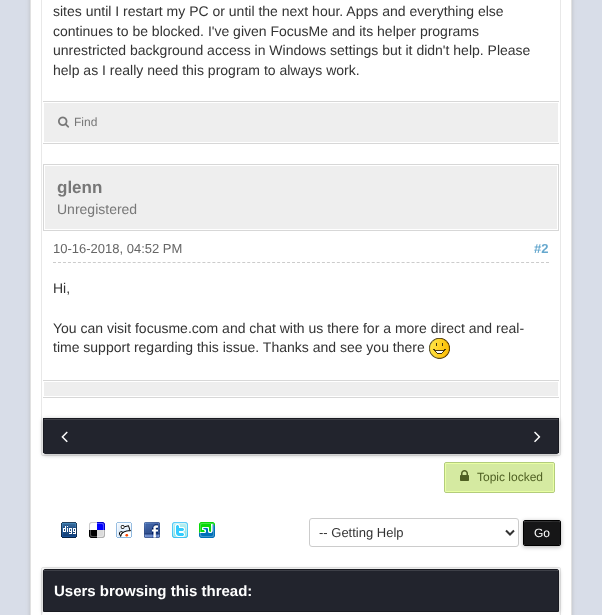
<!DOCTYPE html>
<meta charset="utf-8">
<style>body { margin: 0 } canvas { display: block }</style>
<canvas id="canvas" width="602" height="615"></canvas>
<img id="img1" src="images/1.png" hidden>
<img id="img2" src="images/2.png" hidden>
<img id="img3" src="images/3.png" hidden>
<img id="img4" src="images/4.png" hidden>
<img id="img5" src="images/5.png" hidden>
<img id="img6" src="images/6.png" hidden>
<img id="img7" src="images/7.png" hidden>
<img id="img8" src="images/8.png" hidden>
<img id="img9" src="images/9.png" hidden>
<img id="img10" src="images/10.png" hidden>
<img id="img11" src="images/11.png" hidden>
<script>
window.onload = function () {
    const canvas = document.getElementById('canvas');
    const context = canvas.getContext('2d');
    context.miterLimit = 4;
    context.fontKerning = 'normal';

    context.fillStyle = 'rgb(216, 221, 232)';
    context.fillRect(0, 0, 602, 615);
    context.fillStyle = 'rgb(173, 174, 175)';
    context.filter = 'blur(2.5px)';
    context.beginPath();
    context.roundRect(31, -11, 540, 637, 3);
    context.fill();
    context.filter = 'none';
    context.fillStyle = 'rgb(255, 255, 255)';
    context.beginPath();
    context.rect(30.5, -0.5, 541, 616);
    context.fill();
    context.strokeStyle = 'rgb(225, 225, 225)';
    context.stroke();
    context.beginPath();
    context.roundRect(41.5, -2.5, 519, 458, 1.5);
    context.strokeStyle = 'rgb(232, 232, 232)';
    context.stroke();
    context.fillStyle = 'rgb(238, 238, 238)';
    context.fillRect(44, 103, 514, 39);
    context.fillStyle = 'rgb(215, 215, 215)';
    context.fillRect(43, 101, 516, 1);
    context.fillRect(43, 143, 516, 1);
    context.drawImage(document.getElementById('img1'), 58, 116, 12, 12);
    context.fillStyle = 'rgb(238, 238, 238)';
    context.fillRect(45, 166, 512, 63);
    context.strokeStyle = 'rgb(215, 215, 215)';
    context.strokeRect(43.5, 164.5, 515, 66);
    context.beginPath();
    context.moveTo(53, 262.5);
    context.lineTo(549, 262.5);
    context.strokeStyle = 'rgb(204, 204, 204)';
    context.setLineDash([3, 1.98]);
    context.stroke();
    context.drawImage(document.getElementById('img2'), 429, 338, 21, 21);
    context.fillRect(44, 382, 514, 14);
    context.fillStyle = 'rgb(215, 215, 215)';
    context.fillRect(43, 380, 516, 1);
    context.fillRect(43, 397, 516, 1);
    context.fillStyle = 'rgba(0, 0, 0, 0.3)';
    context.filter = 'blur(2px)';
    context.beginPath();
    context.roundRect(43, 419, 516, 36, 2);
    context.fill();
    context.filter = 'none';
    context.fillStyle = 'rgb(34, 36, 45)';
    context.beginPath();
    context.moveTo(44, 419);
    context.lineTo(558, 419);
    context.lineTo(558, 452);
    context.bezierCurveTo(558, 453, 558, 454, 557, 454);
    context.lineTo(45, 454);
    context.bezierCurveTo(44, 454, 44, 453, 44, 452);
    context.closePath();
    context.fill();
    context.fillStyle = 'rgb(63, 64, 72)';
    context.fillRect(44, 419, 514, 1);
    context.fillStyle = 'rgb(25, 26, 33)';
    context.fillRect(43, 418, 516, 1);
    context.fillRect(558, 418, 1, 35);
    context.fillRect(43, 418, 1, 35);
    context.drawImage(document.getElementById('img3'), 61, 431, 7, 12);
    context.drawImage(document.getElementById('img4'), 534, 431, 7, 12);
    context.fillStyle = 'rgb(213, 234, 161)';
    context.beginPath();
    context.roundRect(445.5, 463.5, 108, 28, 0.5);
    context.fill();
    context.strokeStyle = 'rgb(233, 255, 164)';
    context.setLineDash([]);
    context.stroke();
    context.beginPath();
    context.roundRect(444.5, 462.5, 110, 30, 1.5);
    context.strokeStyle = 'rgb(179, 204, 124)';
    context.stroke();
    context.drawImage(document.getElementById('img5'), 460, 470, 9, 11);
    context.drawImage(document.getElementById('img6'), 61, 522, 16, 16);
    context.drawImage(document.getElementById('img7'), 89, 522, 16, 16);
    context.drawImage(document.getElementById('img8'), 116, 522, 16, 16);
    context.drawImage(document.getElementById('img9'), 144, 522, 16, 16);
    context.drawImage(document.getElementById('img10'), 172, 522, 16, 16);
    context.drawImage(document.getElementById('img11'), 199, 522, 16, 16);
    context.beginPath();
    context.roundRect(309.5, 518.5, 209, 28, 2.5);
    context.strokeStyle = 'rgb(204, 204, 204)';
    context.stroke();
    context.beginPath();
    context.moveTo(506, 530.5);
    context.lineTo(510, 534.5);
    context.lineTo(514, 530.5);
    context.strokeStyle = 'rgb(51, 51, 51)';
    context.lineWidth = 2;
    context.stroke();
    context.fillStyle = 'rgba(0, 0, 0, 0.3)';
    context.filter = 'blur(2px)';
    context.beginPath();
    context.roundRect(523, 521, 38, 26, 2);
    context.fill();
    context.filter = 'none';
    context.fillStyle = 'rgb(22, 22, 23)';
    context.beginPath();
    context.roundRect(524, 521, 36, 24, 1);
    context.fill();
    context.fillStyle = 'rgba(255, 255, 255, 0.13)';
    context.beginPath();
    context.moveTo(525, 522);
    context.lineTo(548.5, 522);
    context.bezierCurveTo(551, 522, 559, 521.5, 559.5, 522);
    context.bezierCurveTo(560.5, 523.5, 560, 525.5, 560, 527);
    context.bezierCurveTo(560, 520, 561.5, 521, 553.5, 521);
    context.lineTo(524.5, 521);
    context.bezierCurveTo(524, 521.5, 524, 522.5, 524, 523);
    context.closePath();
    context.moveTo(560, 541);
    context.lineTo(560, 544.5);
    context.closePath();
    context.moveTo(524, 544.5);
    context.lineTo(524, 543.5);
    context.closePath();
    context.fill('evenodd');
    context.beginPath();
    context.roundRect(523.5, 520.5, 37, 25, 1.5);
    context.strokeStyle = 'rgb(0, 0, 0)';
    context.lineWidth = 1;
    context.stroke();
    context.beginPath();
    context.roundRect(41.5, 567.5, 519, 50, 1.5);
    context.strokeStyle = 'rgb(232, 232, 232)';
    context.stroke();
    context.fillStyle = 'rgba(0, 0, 0, 0.3)';
    context.filter = 'blur(2px)';
    context.beginPath();
    context.roundRect(43, 570, 516, 43, 2);
    context.fill();
    context.filter = 'none';
    context.fillStyle = 'rgb(34, 36, 45)';
    context.beginPath();
    context.roundRect(44, 570, 514, 41, [1, 1, 0, 0]);
    context.fill();
    context.fillStyle = 'rgba(255, 255, 255, 0.13)';
    context.beginPath();
    context.moveTo(557, 571);
    context.bezierCurveTo(558, 571, 558, 571, 558, 572);
    context.bezierCurveTo(558, 571, 558, 570, 557, 570);
    context.lineTo(45, 570);
    context.lineTo(44, 571);
    context.closePath();
    context.fill();
    context.beginPath();
    context.roundRect(43.5, 569.5, 515, 42, [1.5, 1.5, 0, 0]);
    context.strokeStyle = 'rgb(25, 26, 33)';
    context.stroke();
    context.fillStyle = 'rgb(253, 253, 253)';
    context.fillRect(43, 612, 516, 3);
    context.font = '14px Liberation Sans';
    context.fillStyle = 'rgb(51, 51, 51)';
    context.fillText('sites until I restart my PC or until the next hour. Apps and everything else', 53, 16);
    context.fillText('continues to be blocked. I\'ve given FocusMe and its helper programs', 53, 36);
    context.fillText('unrestricted background access in Windows settings but it didn\'t help. Please', 53, 55);
    context.fillText('help as I really need this program to always work.', 53, 75);
    context.font = '12px Liberation Sans';
    context.fillStyle = 'rgb(119, 119, 119)';
    context.fillText('Find', 74, 126);
    context.font = 'bold 17px Liberation Sans';
    context.fillText('glenn', 57, 193);
    context.font = '14px Liberation Sans';
    context.fillText('Unregistered', 57, 214);
    context.font = '13px Liberation Sans';
    context.fillStyle = 'rgb(102, 102, 102)';
    context.fillText('10-16-2018, 04:52 PM', 53, 253);
    context.font = 'bold 13px Liberation Sans';
    context.fillStyle = 'rgb(102, 168, 206)';
    context.fillText('#2', 534, 253);
    context.font = '14px Liberation Sans';
    context.fillStyle = 'rgb(51, 51, 51)';
    context.fillText('Hi,', 53, 293);
    context.fillText('You can visit focusme.com and chat with us there for a more direct and real-', 53, 333);
    context.fillText('time support regarding this issue. Thanks and see you there', 53, 352);
    context.font = '12px Liberation Sans';
    context.fillStyle = 'rgb(79, 96, 35)';
    context.fillText('Topic locked', 477, 481);
    context.font = '13px Liberation Sans';
    context.fillStyle = 'rgb(51, 51, 51)';
    context.fillText('-- Getting Help', 319, 537);
    context.font = '12px Liberation Sans';
    context.fillStyle = 'rgb(255, 255, 255)';
    context.fillText('Go', 534, 537);
    context.font = 'bold 15px Liberation Sans';
    context.fillText('Users browsing this thread:', 54, 596);
};
</script>
